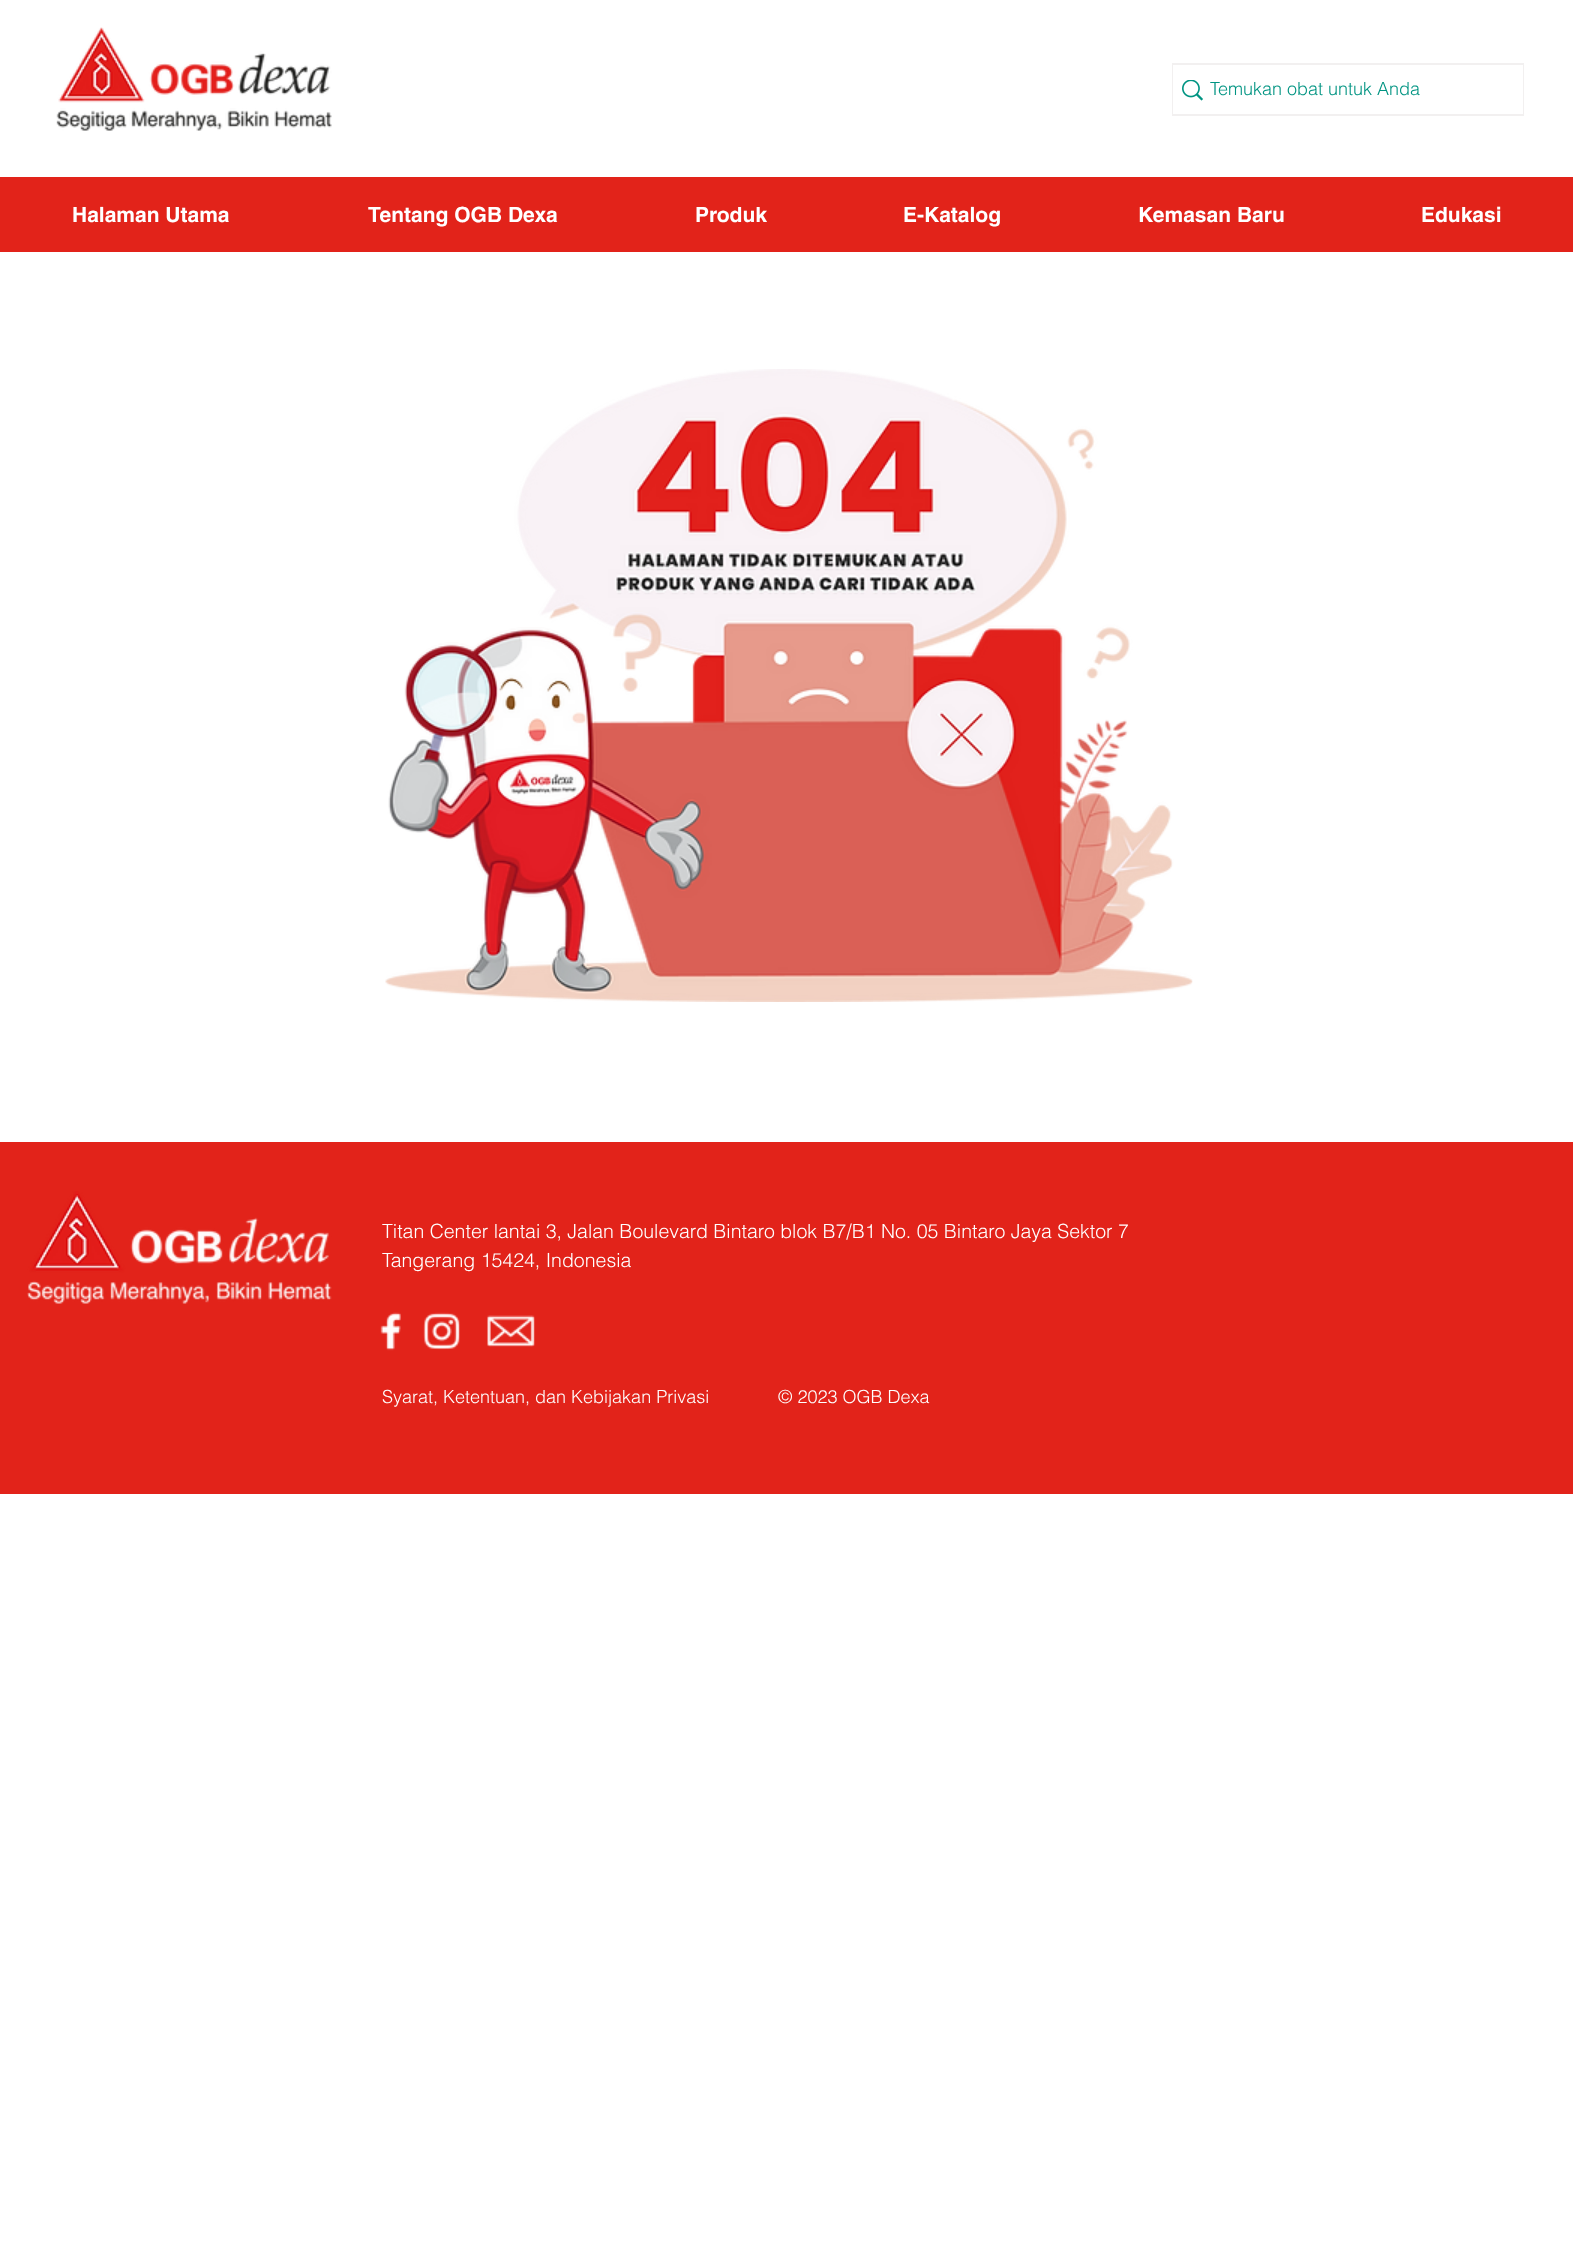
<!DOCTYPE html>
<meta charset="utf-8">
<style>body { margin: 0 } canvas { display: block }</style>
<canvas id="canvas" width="1573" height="2242"></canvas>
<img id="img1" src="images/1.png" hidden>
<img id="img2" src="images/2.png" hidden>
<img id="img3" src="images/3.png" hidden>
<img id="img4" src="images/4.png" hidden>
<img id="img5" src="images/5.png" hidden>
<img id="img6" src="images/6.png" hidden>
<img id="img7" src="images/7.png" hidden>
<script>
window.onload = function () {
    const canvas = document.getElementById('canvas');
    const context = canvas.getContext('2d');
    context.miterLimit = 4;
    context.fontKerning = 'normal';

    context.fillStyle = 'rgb(255, 255, 255)';
    context.fillRect(0, 0, 1573, 2242);
    context.drawImage(document.getElementById('img1'), 56, 27, 276, 104);
    context.strokeStyle = 'rgb(242, 240, 240)';
    context.lineWidth = 2;
    context.strokeRect(1173, 64, 350, 51);
    context.fillRect(1173, 65, 350, 49);
    context.drawImage(document.getElementById('img2'), 1182, 80, 21, 21);
    context.fillStyle = 'rgb(226, 35, 26)';
    context.fillRect(0, 177, 1573, 75);
    context.drawImage(document.getElementById('img3'), 385, 369, 808, 633);
    context.fillRect(0, 1142, 1573, 352);
    context.drawImage(document.getElementById('img4'), 27, 1191, 305, 113);
    context.drawImage(document.getElementById('img5'), 380, 1312, 21, 39);
    context.drawImage(document.getElementById('img6'), 423, 1312, 37, 38);
    context.drawImage(document.getElementById('img7'), 487, 1315, 48, 32);
    context.font = '300 18px helvetica';
    context.fillStyle = 'rgb(0, 148, 130)';
    context.fillText('Temukan obat untuk Anda', 1210, 95);
    context.font = 'bold 21px helvetica';
    context.fillStyle = 'rgb(255, 255, 255)';
    context.fillText('Halaman Utama', 72, 222);
    context.fillText('Tentang OGB Dexa', 368, 222);
    context.fillText('Produk', 695, 222);
    context.fillText('E-Katalog', 903, 222);
    context.fillText('Kemasan Baru', 1138, 222);
    context.fillText('Edukasi', 1421, 222);
    context.font = '300 19.5px helvetica';
    context.fillText('Titan Center lantai 3, Jalan Boulevard Bintaro blok B7/B1 No. 05 Bintaro Jaya Sektor 7', 382, 1238);
    context.fillText('Tangerang 15424, Indonesia', 382, 1267);
    context.font = '300 18px helvetica';
    context.fillText('Syarat, Ketentuan, dan Kebijakan Privasi', 382, 1403);
    context.fillText('© 2023 OGB Dexa', 778, 1403);
};
</script>
